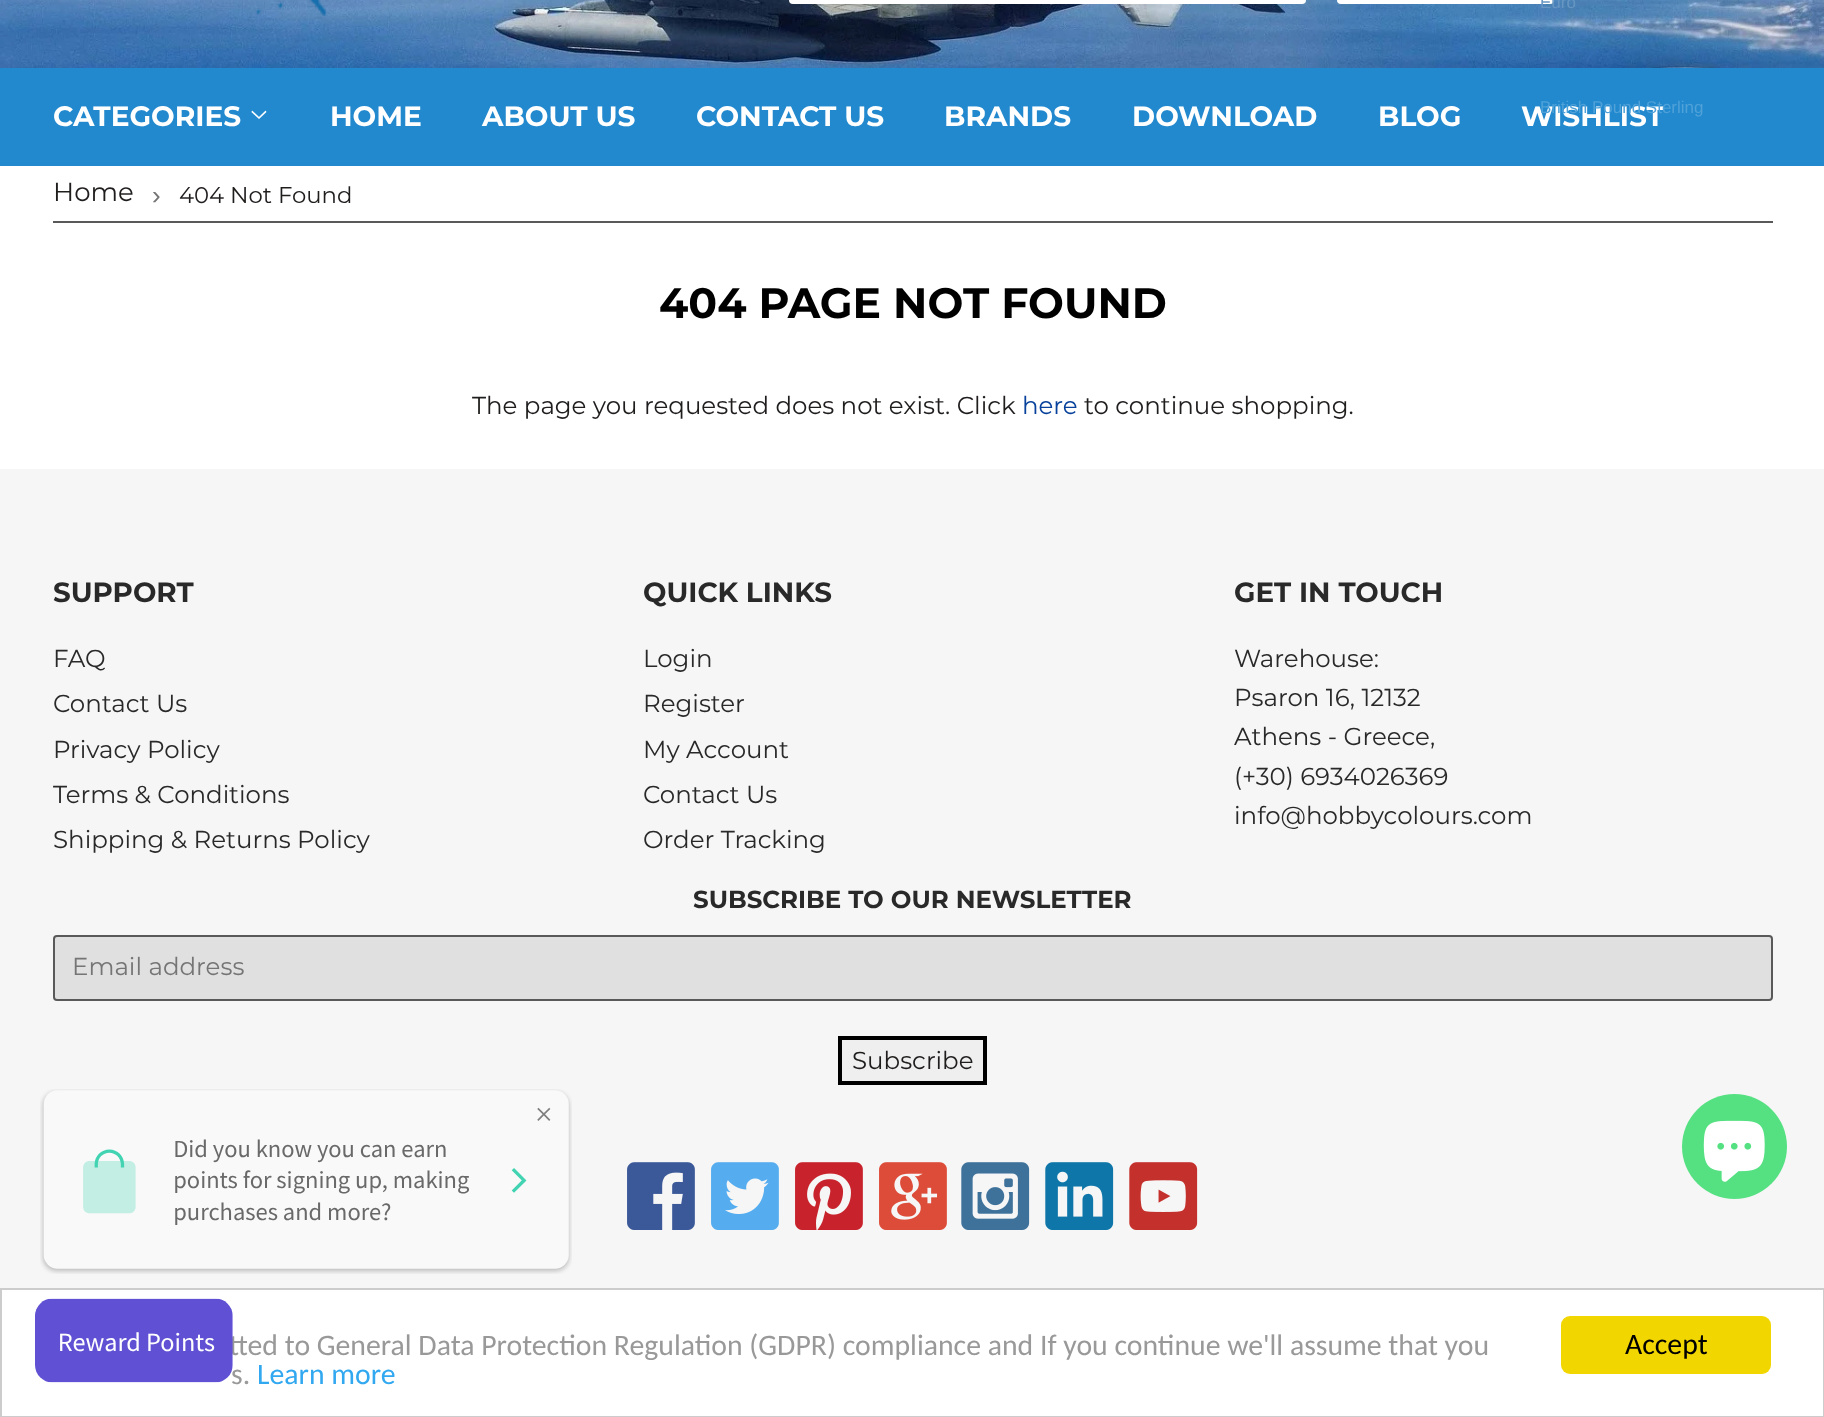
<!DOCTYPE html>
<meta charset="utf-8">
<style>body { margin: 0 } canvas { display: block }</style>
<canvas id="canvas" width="1824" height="1417"></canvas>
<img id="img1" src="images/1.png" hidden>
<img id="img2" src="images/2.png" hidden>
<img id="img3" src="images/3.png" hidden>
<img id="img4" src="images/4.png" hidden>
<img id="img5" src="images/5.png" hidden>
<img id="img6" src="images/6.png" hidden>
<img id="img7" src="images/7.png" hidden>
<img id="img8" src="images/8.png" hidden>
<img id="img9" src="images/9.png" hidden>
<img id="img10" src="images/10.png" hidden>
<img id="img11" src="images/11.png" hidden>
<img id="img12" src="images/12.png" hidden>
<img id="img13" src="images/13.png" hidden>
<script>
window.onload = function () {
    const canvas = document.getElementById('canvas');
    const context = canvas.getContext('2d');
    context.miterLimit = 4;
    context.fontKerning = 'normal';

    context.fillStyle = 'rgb(255, 255, 255)';
    context.fillRect(0, 0, 1824, 1417);
    context.drawImage(document.getElementById('img1'), 0, 0, 1824, 68);
    context.drawImage(document.getElementById('img2'), 255, 0, 73, 16);
    context.beginPath();
    context.roundRect(789, -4, 517, 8, 4);
    context.fill();
    context.beginPath();
    context.roundRect(1337, -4, 217, 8, 4);
    context.fill();
    context.fillStyle = 'rgb(34, 137, 206)';
    context.fillRect(0, 68, 1824, 98);
    context.drawImage(document.getElementById('img3'), 251, 110, 16, 9);
    context.fillStyle = 'rgb(90, 89, 89)';
    context.fillRect(53, 221, 1720, 2);
    context.fillStyle = 'rgb(246, 246, 246)';
    context.fillRect(0, 469, 1824, 819);
    context.fillStyle = 'rgb(225, 224, 224)';
    context.beginPath();
    context.roundRect(54, 936, 1718, 64, 3);
    context.fill();
    context.strokeStyle = 'rgb(90, 89, 89)';
    context.lineWidth = 2;
    context.stroke();
    context.fillStyle = 'rgb(239, 239, 239)';
    context.beginPath();
    context.rect(840, 1038, 145, 45);
    context.fill();
    context.strokeStyle = 'rgb(0, 0, 0)';
    context.lineWidth = 4;
    context.stroke();
    context.drawImage(document.getElementById('img4'), 627, 1162, 68, 68);
    context.drawImage(document.getElementById('img5'), 711, 1162, 68, 68);
    context.drawImage(document.getElementById('img6'), 795, 1162, 68, 68);
    context.drawImage(document.getElementById('img7'), 879, 1162, 68, 68);
    context.drawImage(document.getElementById('img8'), 961, 1162, 69, 68);
    context.drawImage(document.getElementById('img9'), 1045, 1162, 69, 68);
    context.drawImage(document.getElementById('img10'), 1129, 1162, 69, 68);
    context.drawImage(document.getElementById('img11'), 40, 1089, 532, 185);
    context.fillStyle = 'rgb(85, 225, 130)';
    context.beginPath();
    context.arc(1734.5, 1146.5, 52.5, 0, 2 * Math.PI);
    context.fill();
    context.drawImage(document.getElementById('img12'), 1703, 1120, 62, 62);
    context.strokeStyle = 'rgb(204, 204, 204)';
    context.lineWidth = 2;
    context.strokeRect(1, 1289, 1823, 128);
    context.fillStyle = 'rgb(241, 214, 0)';
    context.beginPath();
    context.roundRect(1561, 1316, 210, 58, 9);
    context.fill();
    context.font = '17px Liberation Sans';
    context.fillStyle = 'rgb(103, 150, 194)';
    context.fillText('Euro', 1540, 8);
    context.font = 'bold 28px Montserrat';
    context.fillStyle = 'rgb(255, 255, 255)';
    context.fillText('CATEGORIES', 53, 126);
    context.fillText('HOME', 330, 126);
    context.fillText('ABOUT US', 482, 126);
    context.fillText('CONTACT US', 696, 126);
    context.fillText('BRANDS', 944, 126);
    context.fillText('DOWNLOAD', 1132, 126);
    context.fillText('BLOG', 1378, 126);
    context.fillText('WISHLIST', 1521, 126);
    context.font = '17px Liberation Sans';
    context.fillStyle = 'rgb(79, 161, 216)';
    context.fillText('British Pound Sterling', 1540, 113);
    context.font = '100 26px Montserrat';
    context.fillStyle = 'rgb(32, 29, 29)';
    context.fillText('Home', 53, 201);
    context.font = '26px Liberation Sans';
    context.fillStyle = 'rgb(117, 117, 117)';
    context.fillText('›', 152, 204);
    context.font = '100 22.75px Montserrat';
    context.fillStyle = 'rgb(32, 29, 29)';
    context.fillText('404 Not Found', 179, 203);
    context.font = 'bold 42.5px Montserrat';
    context.fillStyle = 'rgb(0, 0, 0)';
    context.fillText('404 PAGE NOT FOUND', 659, 318);
    context.font = '100 24.5px Montserrat';
    context.fillStyle = 'rgb(32, 29, 29)';
    context.fillText('The page you requested does not exist. Click', 472, 414);
    context.fillStyle = 'rgb(7, 65, 155)';
    context.fillText('here', 1022, 414);
    context.fillStyle = 'rgb(32, 29, 29)';
    context.fillText('to continue shopping.', 1084, 414);
    context.font = 'bold 27.75px Montserrat';
    context.fillStyle = 'rgb(42, 41, 41)';
    context.fillText('SUPPORT', 53, 602);
    context.font = '100 24.5px Montserrat';
    context.fillText('FAQ', 53, 667);
    context.fillText('Contact Us', 53, 712);
    context.fillText('Privacy Policy', 53, 758);
    context.fillText('Terms & Conditions', 53, 803);
    context.fillText('Shipping & Returns Policy', 53, 848);
    context.font = 'bold 27.75px Montserrat';
    context.fillText('QUICK LINKS', 643, 602);
    context.font = '100 24.5px Montserrat';
    context.fillText('Login', 643, 667);
    context.fillText('Register', 643, 712);
    context.fillText('My Account', 643, 758);
    context.fillText('Contact Us', 643, 803);
    context.fillText('Order Tracking', 643, 848);
    context.font = 'bold 27.75px Montserrat';
    context.fillText('GET IN TOUCH', 1234, 602);
    context.font = '100 24.5px Montserrat';
    context.fillText('Warehouse:', 1234, 667);
    context.fillText('Psaron 16, 12132', 1234, 706);
    context.fillText('Athens - Greece,', 1234, 745);
    context.fillText('(+30) 6934026369', 1234, 785);
    context.fillText('info@hobbycolours.com', 1234, 824);
    context.font = 'bold 24.5px Montserrat';
    context.fillText('SUBSCRIBE TO OUR NEWSLETTER', 693, 908);
    context.font = '100 24.5px Montserrat';
    context.fillStyle = 'rgb(117, 117, 117)';
    context.fillText('Email address', 72, 975);
    context.fillStyle = 'rgb(32, 29, 29)';
    context.fillText('Subscribe', 852, 1069);
    context.font = '29.75px Carlito';
    context.fillStyle = 'rgb(153, 153, 153)';
    context.fillText('tted to General Data Protection Regulation (GDPR) compliance and If you continue we\'ll assume that you', 229, 1355);
    context.fillText('s.', 231, 1384);
    context.drawImage(document.getElementById('img13'), 35, 1298, 198, 85);
    context.fillStyle = 'rgb(49, 168, 240)';
    context.fillText('Learn more', 257, 1384);
    context.fillStyle = 'rgb(0, 0, 0)';
    context.fillText('Accept', 1625, 1354);
};
</script>
